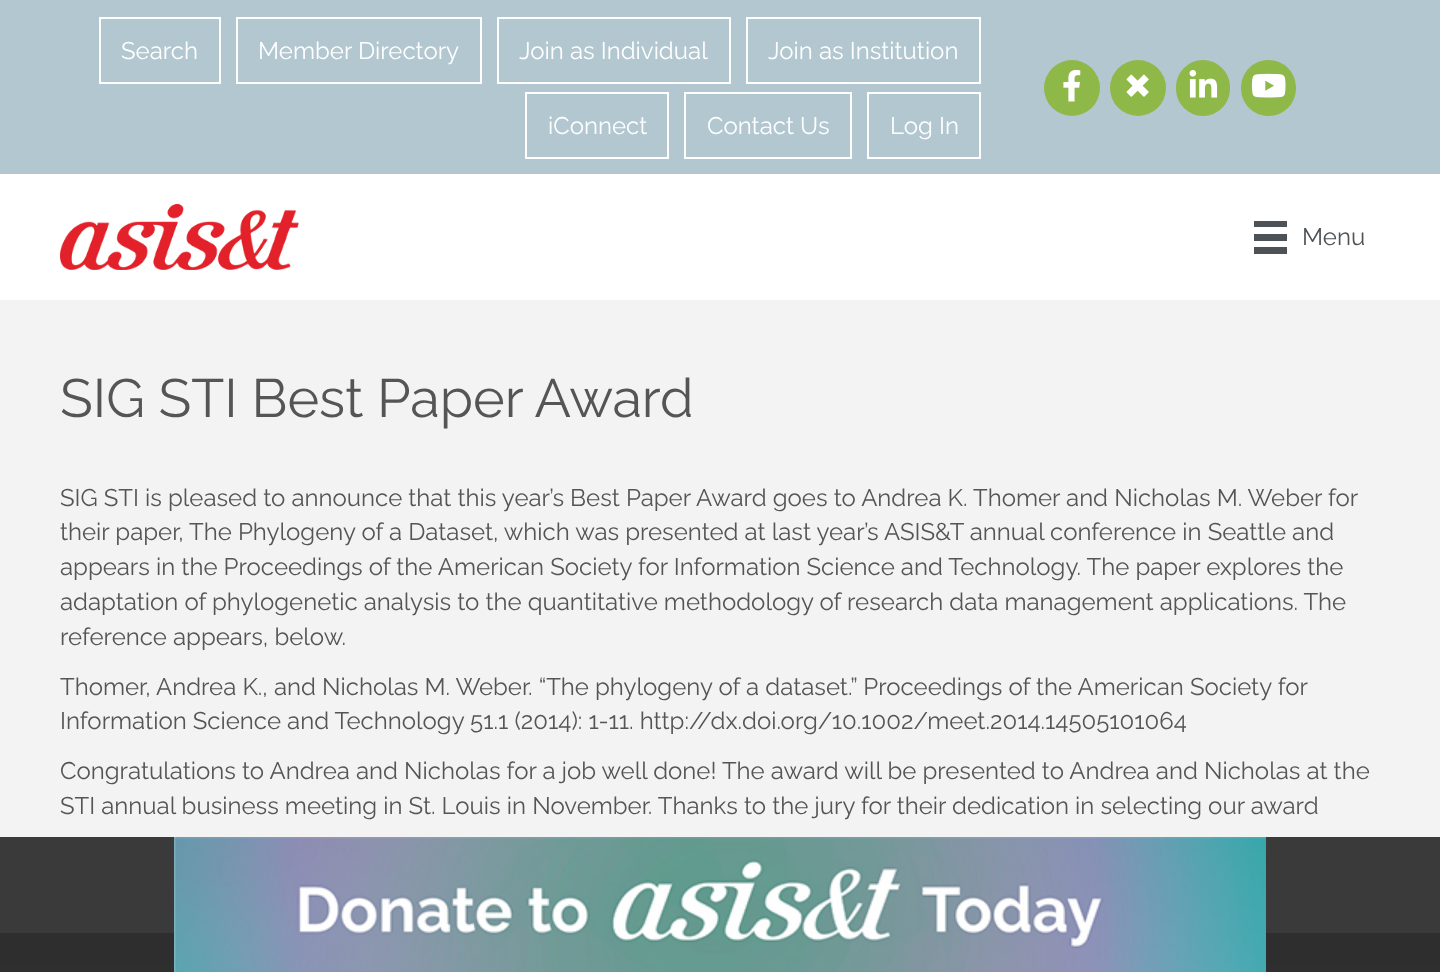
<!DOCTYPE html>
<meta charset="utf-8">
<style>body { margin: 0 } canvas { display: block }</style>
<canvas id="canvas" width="1440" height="972"></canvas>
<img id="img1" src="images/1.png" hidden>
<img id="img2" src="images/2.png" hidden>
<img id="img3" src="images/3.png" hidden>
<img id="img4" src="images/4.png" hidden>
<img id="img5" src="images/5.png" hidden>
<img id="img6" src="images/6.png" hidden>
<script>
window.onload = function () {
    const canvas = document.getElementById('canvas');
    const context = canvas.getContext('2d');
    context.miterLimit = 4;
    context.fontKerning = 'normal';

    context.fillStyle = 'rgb(178, 199, 208)';
    context.fillRect(0, 0, 1440, 972);
    context.strokeStyle = 'rgb(255, 255, 255)';
    context.lineWidth = 2;
    context.strokeRect(100, 18, 120, 65);
    context.strokeRect(237, 18, 244, 65);
    context.strokeRect(498, 18, 232, 65);
    context.strokeRect(747, 18, 233, 65);
    context.strokeRect(526, 93, 142, 65);
    context.strokeRect(685, 93, 166, 65);
    context.strokeRect(868, 93, 112, 65);
    context.fillStyle = 'rgb(142, 184, 72)';
    context.beginPath();
    context.arc(1072, 88, 28, 0, 2 * Math.PI);
    context.fill();
    context.drawImage(document.getElementById('img1'), 1063, 69, 18, 33);
    context.beginPath();
    context.arc(1138, 88, 28, 0, 2 * Math.PI);
    context.fill();
    context.drawImage(document.getElementById('img2'), 1126, 74, 23, 23);
    context.beginPath();
    context.roundRect(1176, 60, 54, 56, 27);
    context.fill();
    context.drawImage(document.getElementById('img3'), 1189, 70, 29, 28);
    context.beginPath();
    context.roundRect(1241, 60, 55, 56, 27.5);
    context.fill();
    context.drawImage(document.getElementById('img4'), 1251, 73, 35, 25);
    context.fillStyle = 'rgb(255, 255, 255)';
    context.fillRect(0, 174, 1440, 126);
    context.drawImage(document.getElementById('img5'), 60, 204, 239, 66);
    context.fillStyle = 'rgb(76, 82, 86)';
    context.fillRect(1254, 221, 33, 6);
    context.fillRect(1254, 234, 33, 7);
    context.fillRect(1254, 247, 33, 7);
    context.fillStyle = 'rgb(243, 243, 243)';
    context.fillRect(0, 300, 1440, 633);
    context.fillStyle = 'rgb(32, 32, 32)';
    context.fillRect(0, 933, 1440, 32);
    context.fillStyle = 'rgba(47, 47, 47, 0.95)';
    context.fillRect(0, 837, 1440, 128);
    context.fillStyle = 'rgb(47, 47, 47)';
    context.fillRect(0, 965, 1440, 7);
    context.drawImage(document.getElementById('img6'), 174, 837, 1092, 135);
    context.font = '24px Raleway';
    context.fillStyle = 'rgb(255, 255, 255)';
    context.fillText('Search', 121, 59);
    context.fillText('Member Directory', 258, 59);
    context.fillText('Join as Individual', 519, 59);
    context.fillText('Join as Institution', 768, 59);
    context.fillText('iConnect', 548, 134);
    context.fillText('Contact Us', 707, 134);
    context.fillText('Log In', 890, 134);
    context.fillStyle = 'rgb(76, 82, 86)';
    context.fillText('Menu', 1302, 245);
    context.font = '54px Raleway';
    context.fillStyle = 'rgb(85, 85, 85)';
    context.fillText('SIG STI Best Paper Award', 60, 417);
    context.font = '24px Raleway';
    context.fillText('SIG STI is pleased to announce that this year’s Best Paper Award goes to Andrea K. Thomer and Nicholas M. Weber for', 60, 506);
    context.fillText('their paper, The Phylogeny of a Dataset, which was presented at last year’s ASIS&T annual conference in Seattle and', 60, 540);
    context.fillText('appears in the Proceedings of the American Society for Information Science and Technology. The paper explores the', 60, 575);
    context.fillText('adaptation of phylogenetic analysis to the quantitative methodology of research data management applications. The', 60, 610);
    context.fillText('reference appears, below.', 60, 645);
    context.fillText('Thomer, Andrea K., and Nicholas M. Weber. “The phylogeny of a dataset.” Proceedings of the American Society for', 60, 695);
    context.fillText('Information Science and Technology 51.1 (2014): 1-11. http://dx.doi.org/10.1002/meet.2014.14505101064', 60, 729);
    context.fillText('Congratulations to Andrea and Nicholas for a job well done! The award will be presented to Andrea and Nicholas at the', 60, 779);
    context.fillText('STI annual business meeting in St. Louis in November. Thanks to the jury for their dedication in selecting our award', 60, 814);
};
</script>
